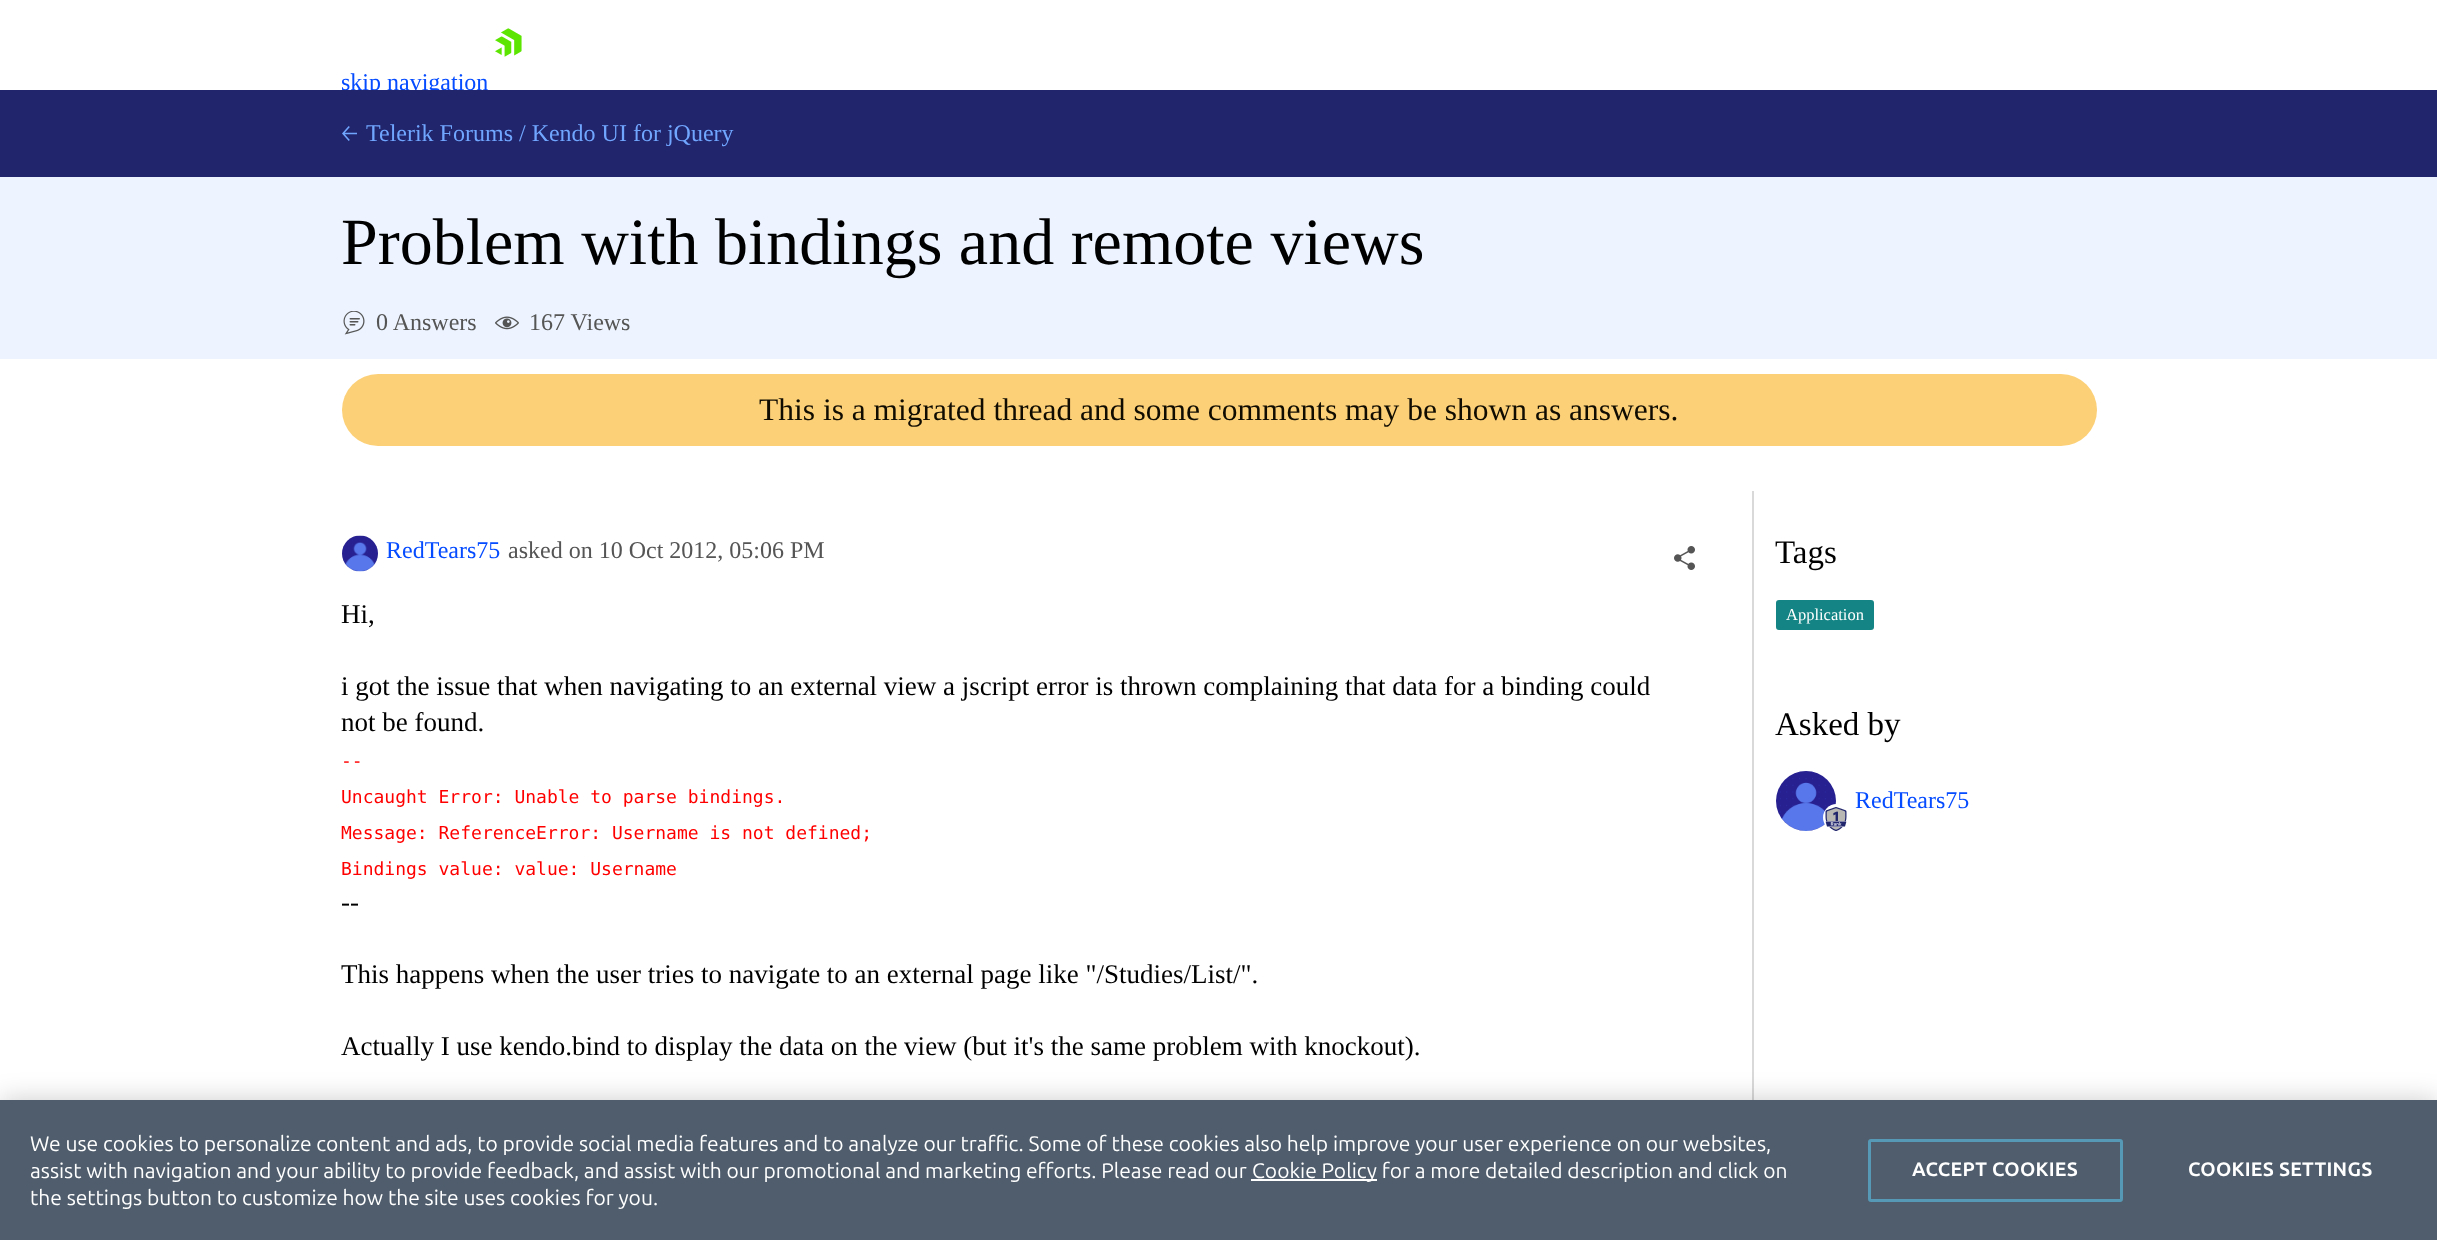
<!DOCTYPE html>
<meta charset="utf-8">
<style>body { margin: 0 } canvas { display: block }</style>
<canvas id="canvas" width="2437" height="1240"></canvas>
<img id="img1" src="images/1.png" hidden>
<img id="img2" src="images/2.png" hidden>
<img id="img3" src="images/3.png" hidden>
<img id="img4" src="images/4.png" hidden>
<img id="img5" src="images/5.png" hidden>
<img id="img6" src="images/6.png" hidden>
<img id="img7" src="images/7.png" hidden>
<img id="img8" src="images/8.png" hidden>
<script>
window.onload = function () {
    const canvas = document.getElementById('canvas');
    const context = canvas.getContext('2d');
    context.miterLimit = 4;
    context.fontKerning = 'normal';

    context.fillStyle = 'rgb(255, 255, 255)';
    context.fillRect(0, 0, 2437, 1240);
    context.drawImage(document.getElementById('img1'), 495, 28, 27, 29);
    context.fillStyle = 'rgb(32, 37, 108)';
    context.fillRect(0, 90, 2437, 87);
    context.drawImage(document.getElementById('img2'), 342, 126, 15, 15);
    context.fillStyle = 'rgb(237, 244, 255)';
    context.fillRect(0, 177, 2437, 182);
    context.drawImage(document.getElementById('img3'), 343, 311, 22, 24);
    context.drawImage(document.getElementById('img4'), 495, 316, 24, 14);
    context.fillStyle = 'rgb(252, 208, 119)';
    context.beginPath();
    context.roundRect(342, 374, 1755, 72, 36);
    context.fill();
    context.drawImage(document.getElementById('img5'), 342, 535, 36, 37);
    context.drawImage(document.getElementById('img6'), 1674, 546, 21, 24);
    context.fillStyle = 'rgb(217, 217, 217)';
    context.fillRect(1752, 491, 2, 609);
    context.fillStyle = 'rgb(20, 132, 132)';
    context.beginPath();
    context.roundRect(1777, 601, 96, 28, 2);
    context.fill();
    context.strokeStyle = 'rgb(20, 132, 132)';
    context.lineWidth = 2;
    context.stroke();
    context.drawImage(document.getElementById('img7'), 1776, 771, 60, 60);
    context.fillStyle = 'rgb(255, 255, 255)';
    context.beginPath();
    context.arc(1836.5, 817.5, 13.5, 0, 2 * Math.PI);
    context.fill();
    context.drawImage(document.getElementById('img8'), 1825, 807, 22, 24);
    context.fillStyle = 'rgba(0, 0, 0, 0.2)';
    context.filter = 'blur(13.5px)';
    context.beginPath();
    context.rect(0, 1100, 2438, 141);
    context.fill();
    context.filter = 'none';
    context.fillStyle = 'rgb(79, 93, 108)';
    context.fillRect(0, 1100, 2437, 140);
    context.fillStyle = 'rgb(255, 255, 255)';
    context.fillRect(1251, 1179, 126, 2);
    context.beginPath();
    context.roundRect(1869.5, 1140.5, 252, 60, 1.5);
    context.strokeStyle = 'rgb(86, 153, 182)';
    context.lineWidth = 3;
    context.stroke();
    context.save();
    context.beginPath();
    context.rect(0, 0, 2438, 90);
    context.clip();
    context.font = '24px Liberation Serif';
    context.fillStyle = 'rgb(5, 75, 255)';
    context.fillText('skip navigation', 341, 90);
    context.restore();
    context.font = '24px Liberation Serif';
    context.fillStyle = 'rgb(113, 166, 255)';
    context.fillText('Telerik Forums / Kendo UI for jQuery', 366, 141);
    context.font = '66px Liberation Serif';
    context.fillStyle = 'rgb(0, 0, 0)';
    context.fillText('Problem with bindings and remote views', 341, 264);
    context.font = '24px Liberation Serif';
    context.fillStyle = 'rgb(85, 85, 85)';
    context.fillText('0 Answers', 376, 330);
    context.fillText('167 Views', 529, 330);
    context.font = '31.5px Liberation Serif';
    context.fillStyle = 'rgb(16, 12, 2)';
    context.fillText('This is a migrated thread and some comments may be shown as answers.', 759, 420);
    context.font = '24px Liberation Serif';
    context.fillStyle = 'rgb(5, 75, 255)';
    context.fillText('RedTears75', 386, 558);
    context.fillStyle = 'rgb(85, 85, 85)';
    context.fillText('asked on 10 Oct 2012, 05:06 PM', 508, 558);
    context.font = '27px Liberation Serif';
    context.fillStyle = 'rgb(0, 0, 0)';
    context.fillText('Hi,', 341, 623);
    context.fillText('i got the issue that when navigating to an external view a jscript error is thrown complaining that data for a binding could', 341, 695);
    context.fillText('not be found.', 341, 731);
    context.font = '18px DejaVu Sans Mono';
    context.fillStyle = 'rgb(255, 0, 0)';
    context.fillText('--', 341, 767);
    context.fillText('Uncaught Error: Unable to parse bindings.', 341, 803);
    context.fillText('Message: ReferenceError: Username is not defined;', 341, 839);
    context.fillText('Bindings value: value: Username', 341, 875);
    context.font = '27px Liberation Serif';
    context.fillStyle = 'rgb(0, 0, 0)';
    context.fillText('--', 341, 911);
    context.fillText('This happens when the user tries to navigate to an external page like "/Studies/List/".', 341, 983);
    context.fillText('Actually I use kendo.bind to display the data on the view (but it\'s the same problem with knockout).', 341, 1055);
    context.font = '33px Liberation Serif';
    context.fillText('Tags', 1775, 563);
    context.font = '16.5px Liberation Serif';
    context.fillStyle = 'rgb(255, 255, 255)';
    context.fillText('Application', 1786, 620);
    context.font = '33px Liberation Serif';
    context.fillStyle = 'rgb(0, 0, 0)';
    context.fillText('Asked by', 1775, 735);
    context.font = '24px Liberation Serif';
    context.fillStyle = 'rgb(5, 75, 255)';
    context.fillText('RedTears75', 1855, 808);
    context.font = '21px Ubuntu';
    context.fillStyle = 'rgb(255, 255, 255)';
    context.fillText('We use cookies to personalize content and ads, to provide social media features and to analyze our traffic. Some of these cookies also help improve your user experience on our websites,', 30, 1151);
    context.fillText('assist with navigation and your ability to provide feedback, and assist with our promotional and marketing efforts. Please read our', 30, 1178);
    context.fillText('Cookie Policy for a more detailed description and click on', 1252, 1178);
    context.fillText('the settings button to customize how the site uses cookies for you.', 30, 1205);
    context.letterSpacing = '0.25px';
    context.font = 'bold 19.5px Ubuntu';
    context.fillText('ACCEPT COOKIES', 1912, 1176);
    context.fillText('COOKIES SETTINGS', 2188, 1176);
};
</script>
